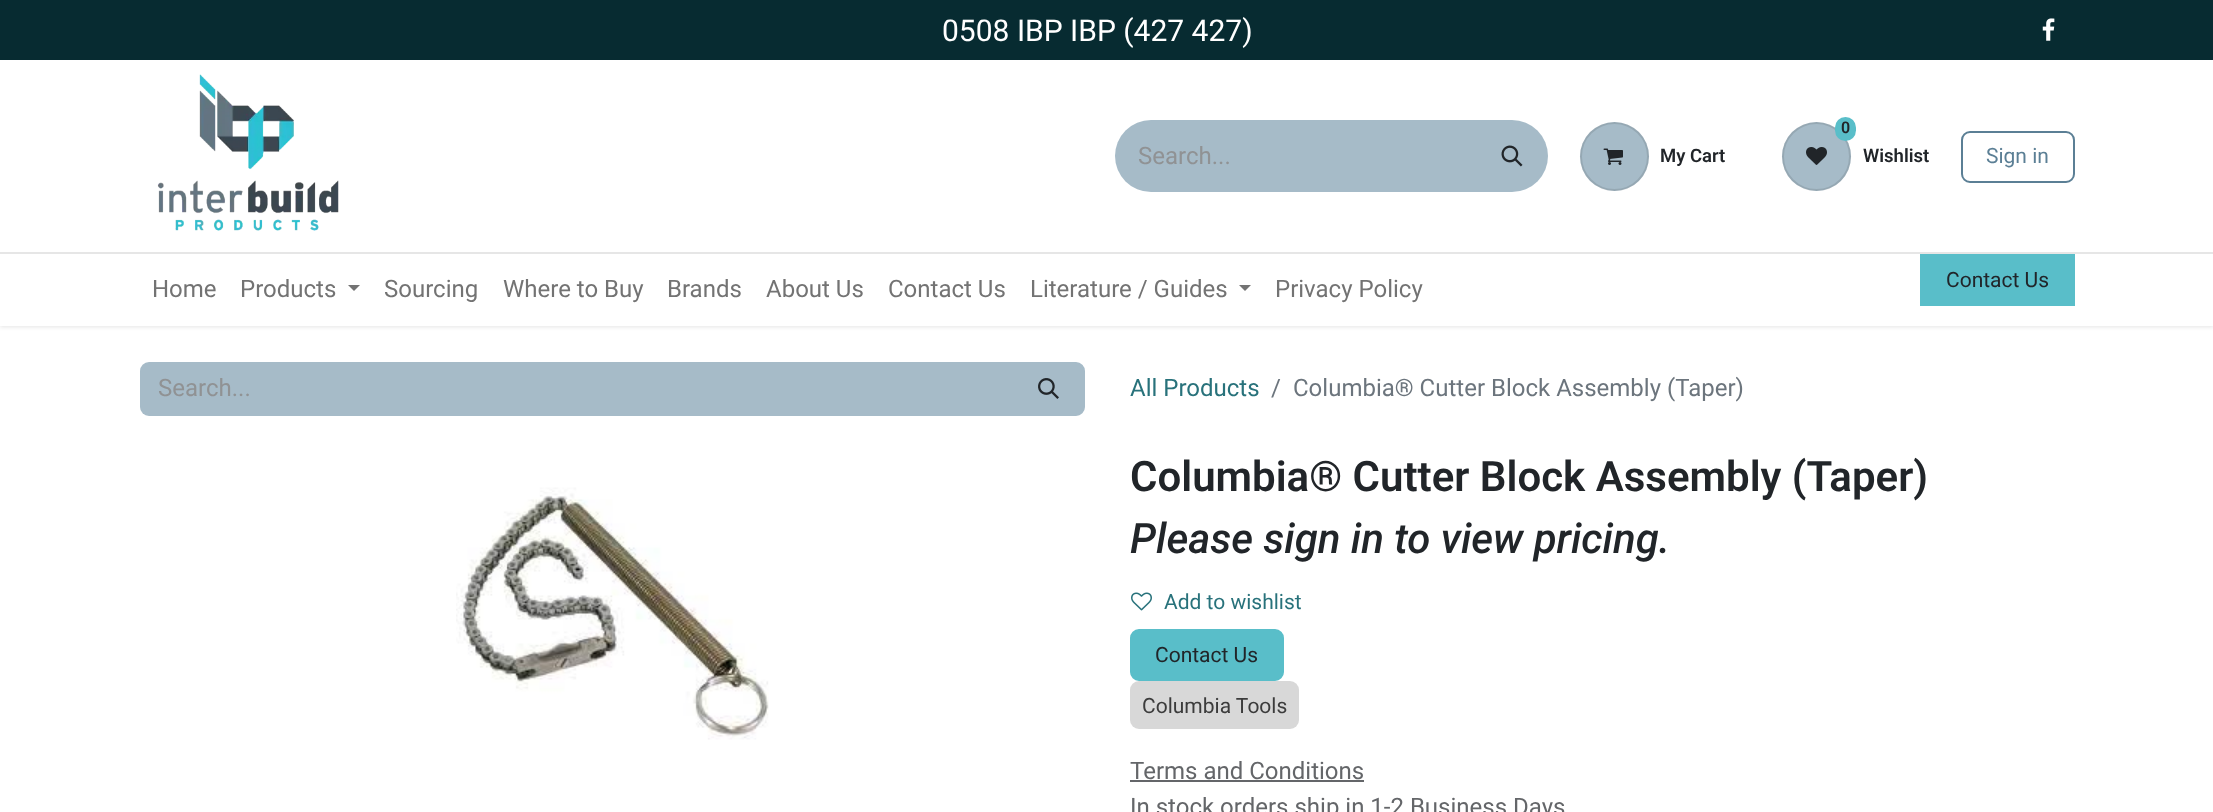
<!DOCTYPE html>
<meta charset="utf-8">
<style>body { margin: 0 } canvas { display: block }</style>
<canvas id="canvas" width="2213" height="812"></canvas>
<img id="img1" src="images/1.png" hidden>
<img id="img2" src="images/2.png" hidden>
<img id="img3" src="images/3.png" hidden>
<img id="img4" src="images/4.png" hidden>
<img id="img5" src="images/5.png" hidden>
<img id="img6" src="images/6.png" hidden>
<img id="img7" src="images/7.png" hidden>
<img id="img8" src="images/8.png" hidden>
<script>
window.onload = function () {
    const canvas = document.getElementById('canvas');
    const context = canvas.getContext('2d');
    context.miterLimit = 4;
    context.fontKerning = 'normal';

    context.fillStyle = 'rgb(255, 255, 255)';
    context.fillRect(0, 0, 2213, 812);
    context.fillStyle = 'rgba(0, 0, 0, 0.1)';
    context.filter = 'blur(2px)';
    context.beginPath();
    context.rect(0, 2, 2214, 325);
    context.fill();
    context.filter = 'none';
    context.fillStyle = 'rgb(255, 255, 255)';
    context.fillRect(0, 60, 2213, 266);
    context.fillStyle = 'rgb(7, 43, 49)';
    context.fillRect(0, 0, 2213, 60);
    context.drawImage(document.getElementById('img1'), 2042, 18, 13, 23);
    context.drawImage(document.getElementById('img2'), 157, 74, 182, 157);
    context.fillStyle = 'rgb(166, 187, 200)';
    context.beginPath();
    context.roundRect(1115, 120, 363, 72, [36, 0, 0, 36]);
    context.fill();
    context.beginPath();
    context.roundRect(1476, 120, 72, 72, [0, 36, 36, 0]);
    context.fill();
    context.drawImage(document.getElementById('img3'), 1501, 145, 22, 22);
    context.beginPath();
    context.arc(1614.5, 156.5, 34.5, 0, 2 * Math.PI);
    context.fill();
    context.beginPath();
    context.arc(1614.5, 156.5, 33.5, 0, 2 * Math.PI);
    context.strokeStyle = 'rgba(0, 0, 0, 0.1)';
    context.lineWidth = 2;
    context.stroke();
    context.drawImage(document.getElementById('img4'), 1603, 148, 20, 17);
    context.beginPath();
    context.arc(1816.5, 156.5, 34.5, 0, 2 * Math.PI);
    context.fill();
    context.beginPath();
    context.arc(1816.5, 156.5, 33.5, 0, 2 * Math.PI);
    context.stroke();
    context.fillStyle = 'rgb(89, 190, 201)';
    context.beginPath();
    context.roundRect(1835, 117, 21, 24, 10.5);
    context.fill();
    context.drawImage(document.getElementById('img5'), 1806, 147, 21, 18);
    context.beginPath();
    context.roundRect(1962, 132, 112, 50, 8);
    context.strokeStyle = 'rgb(91, 127, 149)';
    context.stroke();
    context.fillStyle = 'rgb(230, 230, 230)';
    context.fillRect(0, 252, 2213, 2);
    context.fillStyle = 'rgb(115, 115, 115)';
    context.beginPath();
    context.moveTo(348, 285);
    context.lineTo(360, 285);
    context.lineTo(354, 291);
    context.closePath();
    context.fill();
    context.beginPath();
    context.moveTo(1239, 285);
    context.lineTo(1251, 285);
    context.lineTo(1245, 291);
    context.closePath();
    context.fill();
    context.fillStyle = 'rgb(89, 190, 201)';
    context.fillRect(1920, 254, 155, 52);
    context.fillStyle = 'rgb(166, 187, 200)';
    context.beginPath();
    context.roundRect(140, 362, 874, 54, [9, 0, 0, 9]);
    context.fill();
    context.beginPath();
    context.roundRect(1014, 363, 70, 52, [0, 8, 8, 0]);
    context.fill();
    context.strokeStyle = 'rgb(166, 187, 200)';
    context.stroke();
    context.drawImage(document.getElementById('img6'), 1038, 378, 21, 21);
    context.drawImage(document.getElementById('img7'), 456, 487, 313, 253);
    context.drawImage(document.getElementById('img8'), 1131, 592, 21, 19);
    context.fillStyle = 'rgb(89, 190, 201)';
    context.beginPath();
    context.roundRect(1131, 630, 152, 50, 8);
    context.fill();
    context.strokeStyle = 'rgb(89, 190, 201)';
    context.stroke();
    context.fillStyle = 'rgb(100, 102, 105)';
    context.fillRect(1130, 780, 234, 2);
    context.font = '30px Roboto';
    context.fillStyle = 'rgb(255, 255, 255)';
    context.fillText('0508 IBP IBP (427 427)', 942, 41);
    context.font = '24px Roboto';
    context.fillStyle = 'rgb(144, 146, 148)';
    context.fillText('Search...', 1138, 164);
    context.font = '600 18.5px Roboto';
    context.fillStyle = 'rgb(33, 37, 41)';
    context.fillText('My Cart', 1660, 162);
    context.font = '600 16px Roboto';
    context.fillText('0', 1841, 133);
    context.font = '600 18.5px Roboto';
    context.fillText('Wishlist', 1863, 162);
    context.font = '21px Roboto';
    context.fillStyle = 'rgb(91, 127, 149)';
    context.fillText('Sign in', 1986, 163);
    context.font = '24px Roboto';
    context.fillStyle = 'rgb(115, 115, 115)';
    context.fillText('Home', 152, 297);
    context.fillText('Products', 240, 297);
    context.fillText('Sourcing', 384, 297);
    context.fillText('Where to Buy', 503, 297);
    context.fillText('Brands', 667, 297);
    context.fillText('About Us', 766, 297);
    context.fillText('Contact Us', 888, 297);
    context.fillText('Literature / Guides', 1030, 297);
    context.fillText('Privacy Policy', 1275, 297);
    context.font = '21px Roboto';
    context.fillStyle = 'rgb(33, 37, 41)';
    context.fillText('Contact Us', 1946, 287);
    context.font = '24px Roboto';
    context.fillStyle = 'rgb(144, 146, 148)';
    context.fillText('Search...', 158, 396);
    context.fillStyle = 'rgb(40, 114, 123)';
    context.fillText('All Products', 1130, 396);
    context.fillStyle = 'rgb(108, 117, 125)';
    context.fillText('/', 1271, 396);
    context.fillText('Columbia® Cutter Block Assembly (Taper)', 1293, 396);
    context.font = '600 42px Roboto';
    context.fillStyle = 'rgb(33, 37, 41)';
    context.fillText('Columbia® Cutter Block Assembly (Taper)', 1130, 491);
    context.font = 'italic 500 42px Roboto';
    context.fillText('Please sign in to view pricing.', 1130, 553);
    context.font = '21px Roboto';
    context.fillStyle = 'rgb(40, 114, 123)';
    context.fillText('Add to wishlist', 1164, 609);
    context.fillStyle = 'rgb(33, 37, 41)';
    context.fillText('Contact Us', 1155, 662);
    context.fillStyle = 'rgb(60, 60, 60)';
    context.fillText('Columbia Tools', 1142, 713);
    context.fillStyle = 'rgba(60, 60, 60, 0.2)';
    context.beginPath();
    context.roundRect(1130, 681, 169, 48, 9);
    context.fill();
    context.font = '24px Roboto';
    context.fillStyle = 'rgb(100, 102, 105)';
    context.fillText('Terms and Conditions', 1130, 779);
    context.fillText('In stock orders ship in 1-2 Business Days', 1130, 815);
};
</script>
